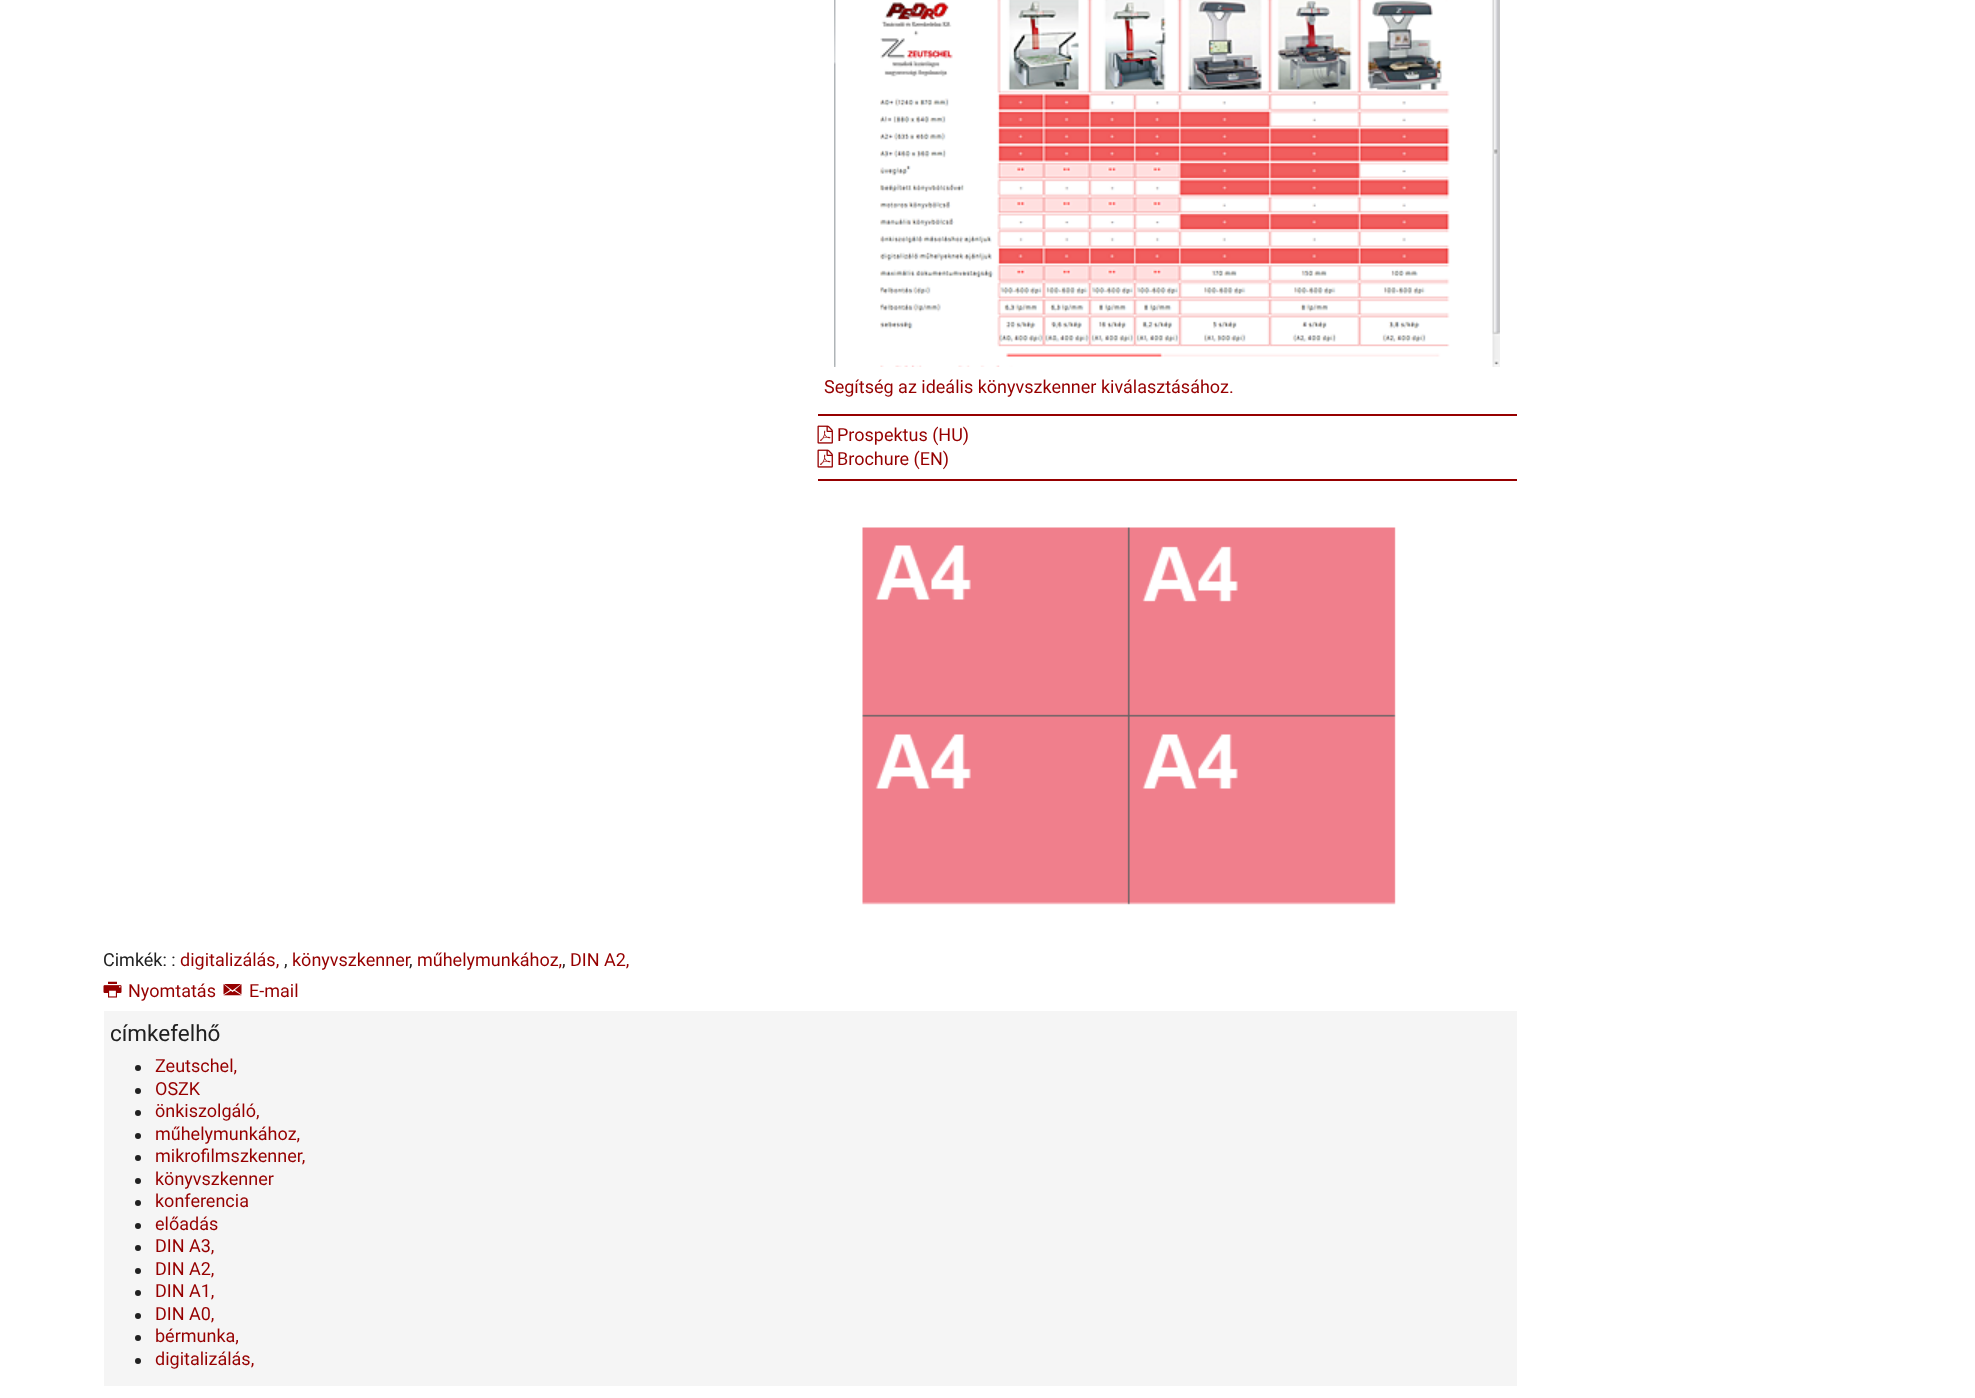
<!DOCTYPE html>
<meta charset="utf-8">
<style>body { margin: 0 } canvas { display: block }</style>
<canvas id="canvas" width="1975" height="1398"></canvas>
<img id="img1" src="images/1.png" hidden>
<img id="img2" src="images/2.png" hidden>
<img id="img3" src="images/3.png" hidden>
<img id="img4" src="images/4.png" hidden>
<img id="img5" src="images/5.png" hidden>
<script>
window.onload = function () {
    const canvas = document.getElementById('canvas');
    const context = canvas.getContext('2d');
    context.miterLimit = 4;
    context.fontKerning = 'normal';

    context.fillStyle = 'rgb(255, 255, 255)';
    context.fillRect(0, 0, 1975, 1398);
    context.drawImage(document.getElementById('img1'), 834, 0, 666, 367);
    context.fillStyle = 'rgb(150, 0, 0)';
    context.fillRect(818, 414, 699, 2);
    context.drawImage(document.getElementById('img2'), 817, 425, 16, 19);
    context.drawImage(document.getElementById('img2'), 817, 449, 16, 19);
    context.fillRect(818, 479, 699, 2);
    context.drawImage(document.getElementById('img3'), 862, 527, 534, 378);
    context.drawImage(document.getElementById('img4'), 103, 981, 19, 17);
    context.drawImage(document.getElementById('img5'), 223, 984, 19, 12);
    context.fillStyle = 'rgb(245, 245, 245)';
    context.fillRect(104, 1011, 1413, 375);
    context.fillStyle = 'rgb(33, 33, 33)';
    context.beginPath();
    context.arc(138, 1068, 3, 0, 2 * Math.PI);
    context.fill();
    context.beginPath();
    context.arc(138, 1091, 3, 0, 2 * Math.PI);
    context.fill();
    context.beginPath();
    context.arc(138, 1113, 3, 0, 2 * Math.PI);
    context.fill();
    context.beginPath();
    context.arc(138, 1136, 3, 0, 2 * Math.PI);
    context.fill();
    context.beginPath();
    context.arc(138, 1158, 3, 0, 2 * Math.PI);
    context.fill();
    context.beginPath();
    context.arc(138, 1181, 3, 0, 2 * Math.PI);
    context.fill();
    context.beginPath();
    context.arc(138, 1203, 3, 0, 2 * Math.PI);
    context.fill();
    context.beginPath();
    context.arc(138, 1226, 3, 0, 2 * Math.PI);
    context.fill();
    context.beginPath();
    context.arc(138, 1248, 3, 0, 2 * Math.PI);
    context.fill();
    context.beginPath();
    context.arc(138, 1271, 3, 0, 2 * Math.PI);
    context.fill();
    context.beginPath();
    context.arc(138, 1293, 3, 0, 2 * Math.PI);
    context.fill();
    context.beginPath();
    context.arc(138, 1316, 3, 0, 2 * Math.PI);
    context.fill();
    context.beginPath();
    context.arc(138, 1338, 3, 0, 2 * Math.PI);
    context.fill();
    context.beginPath();
    context.arc(138, 1361, 3, 0, 2 * Math.PI);
    context.fill();
    context.font = '18px Roboto';
    context.fillStyle = 'rgb(150, 0, 0)';
    context.fillText('Segítség az ideális könyvszkenner kiválasztásához.', 824, 393);
    context.fillText('Prospektus (HU)', 837, 441);
    context.fillText('Brochure (EN)', 837, 465);
    context.fillStyle = 'rgb(33, 33, 33)';
    context.fillText('Cimkék: :', 103, 966);
    context.fillStyle = 'rgb(150, 0, 0)';
    context.fillText('digitalizálás,', 180, 966);
    context.fillStyle = 'rgb(33, 33, 33)';
    context.fillText(',', 284, 966);
    context.fillStyle = 'rgb(150, 0, 0)';
    context.fillText('könyvszkenner', 292, 966);
    context.fillText('műhelymunkához,', 417, 966);
    context.fillText('DIN A2,', 570, 966);
    context.fillStyle = 'rgb(33, 33, 33)';
    context.fillText(',', 409, 966);
    context.fillText(',', 562, 966);
    context.fillStyle = 'rgb(150, 0, 0)';
    context.fillText('Nyomtatás', 128, 997);
    context.fillText('E-mail', 249, 997);
    context.font = '22.5px Roboto';
    context.fillStyle = 'rgb(33, 33, 33)';
    context.fillText('címkefelhő', 110, 1041);
    context.font = '18px Roboto';
    context.fillStyle = 'rgb(150, 0, 0)';
    context.fillText('Zeutschel,', 155, 1072);
    context.fillText('OSZK', 155, 1095);
    context.fillText('önkiszolgáló,', 155, 1117);
    context.fillText('műhelymunkához,', 155, 1140);
    context.fillText('mikrofilmszkenner,', 155, 1162);
    context.fillText('könyvszkenner', 155, 1185);
    context.fillText('konferencia', 155, 1207);
    context.fillText('előadás', 155, 1230);
    context.fillText('DIN A3,', 155, 1252);
    context.fillText('DIN A2,', 155, 1275);
    context.fillText('DIN A1,', 155, 1297);
    context.fillText('DIN A0,', 155, 1320);
    context.fillText('bérmunka,', 155, 1342);
    context.fillText('digitalizálás,', 155, 1365);
};
</script>
